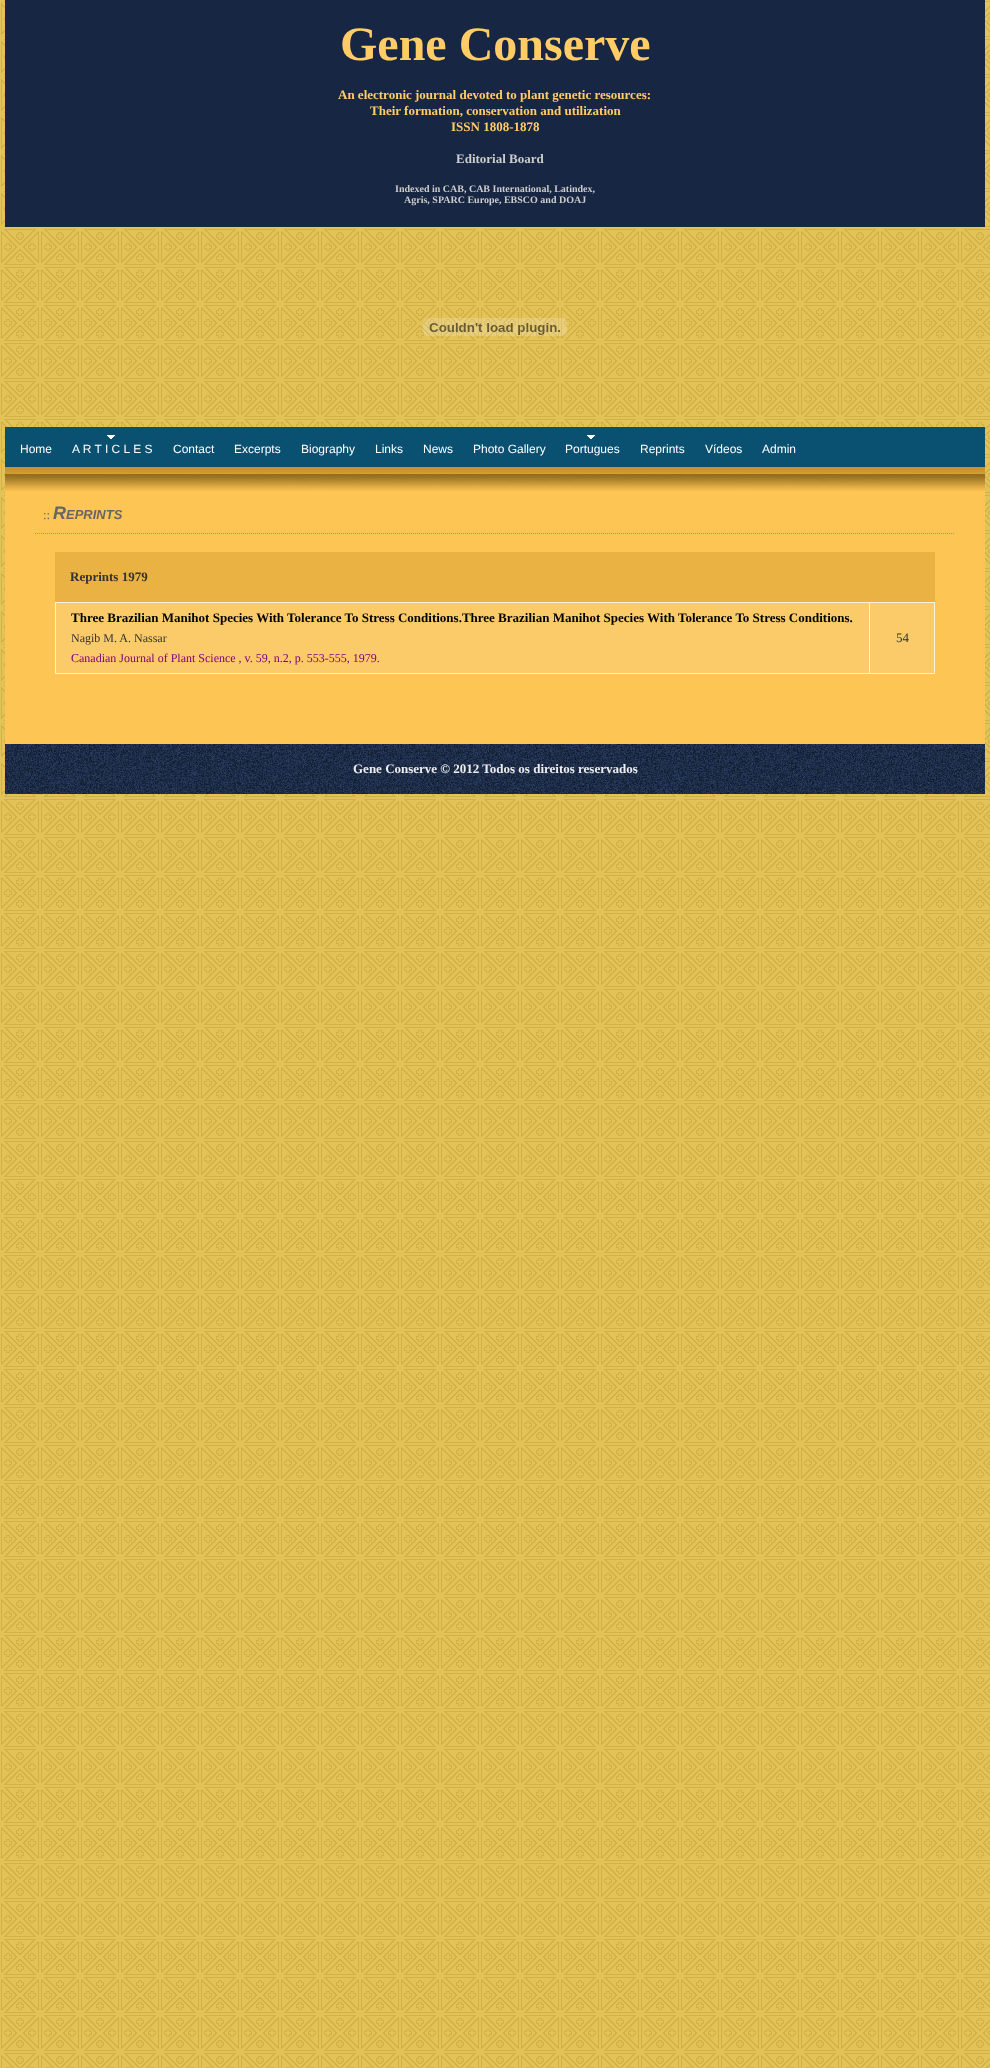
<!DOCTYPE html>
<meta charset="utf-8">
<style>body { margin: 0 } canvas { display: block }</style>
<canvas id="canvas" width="990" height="2068"></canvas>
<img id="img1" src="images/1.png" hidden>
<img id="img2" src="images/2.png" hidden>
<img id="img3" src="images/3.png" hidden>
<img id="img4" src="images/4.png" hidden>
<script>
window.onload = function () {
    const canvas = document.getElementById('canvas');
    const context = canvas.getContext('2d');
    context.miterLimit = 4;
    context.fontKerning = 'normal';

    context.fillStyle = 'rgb(255, 255, 255)';
    context.fillRect(0, 0, 990, 2068);
    context.drawImage(document.getElementById('img1'), 0, 0, 990, 2068);
    context.fillStyle = 'rgb(23, 38, 66)';
    context.fillRect(5, 0, 980, 227);
    context.drawImage(document.getElementById('img2'), 423, 318, 144, 18);
    context.fillStyle = 'rgb(10, 80, 112)';
    context.fillRect(5, 427, 980, 40);
    context.fillStyle = 'rgb(255, 255, 255)';
    context.fillRect(107, 435, 8, 1);
    context.fillRect(108, 436, 6, 1);
    context.fillRect(109, 437, 4, 1);
    context.fillRect(110, 438, 2, 1);
    context.fillRect(587, 435, 8, 1);
    context.fillRect(588, 436, 6, 1);
    context.fillRect(589, 437, 4, 1);
    context.fillRect(590, 438, 2, 1);
    context.fillStyle = 'rgb(253, 197, 84)';
    context.fillRect(5, 491, 980, 253);
    context.drawImage(document.getElementById('img3'), 5, 467, 980, 24);
    context.beginPath();
    context.moveTo(35, 533.5);
    context.lineTo(955, 533.5);
    context.strokeStyle = 'rgb(153, 153, 153)';
    context.setLineDash([1, 1]);
    context.stroke();
    context.fillStyle = 'rgb(234, 178, 67)';
    context.fillRect(55, 552, 880, 50);
    context.fillStyle = 'rgb(251, 240, 218)';
    context.fillRect(55, 602, 880, 72);
    context.fillStyle = 'rgb(251, 203, 105)';
    context.fillRect(56, 603, 813, 70);
    context.fillRect(870, 603, 64, 70);
    context.drawImage(document.getElementById('img4'), 5, 744, 980, 50);
    context.font = 'bold 48px Liberation Serif';
    context.fillStyle = 'rgb(255, 204, 102)';
    context.fillText('Gene Conserve', 340, 60);
    context.font = 'bold 13px Liberation Serif';
    context.fillText('An electronic journal devoted to plant genetic resources:', 338, 99);
    context.fillText('Their formation, conservation and utilization', 370, 115);
    context.fillText('ISSN 1808-1878', 451, 131);
    context.fillStyle = 'rgb(204, 204, 204)';
    context.fillText('Editorial Board', 456, 163);
    context.font = 'bold 10px Liberation Serif';
    context.fillText('Indexed in CAB, CAB International, Latindex,', 395, 192);
    context.fillText('Agris, SPARC Europe, EBSCO and DOAJ', 404, 203);
    context.font = '12px Liberation Sans';
    context.fillStyle = 'rgb(255, 255, 255)';
    context.fillText('Home', 20, 453);
    context.fillText('A R T I C L E S', 72, 453);
    context.fillText('Contact', 173, 453);
    context.fillText('Excerpts', 234, 453);
    context.fillText('Biography', 301, 453);
    context.fillText('Links', 375, 453);
    context.fillText('News', 423, 453);
    context.fillText('Photo Gallery', 473, 453);
    context.fillText('Portugues', 565, 453);
    context.fillText('Reprints', 640, 453);
    context.fillText('Vídeos', 705, 453);
    context.fillText('Admin', 762, 453);
    context.font = '13px Liberation Serif';
    context.fillStyle = 'rgb(102, 102, 102)';
    context.fillText('::', 43, 519);
    context.font = 'italic bold 18px Liberation Sans';
    context.fillText('R', 53, 519);
    context.font = 'italic bold 13px Liberation Sans';
    context.fillText('EPRINTS', 66, 519);
    context.font = 'bold 13px Liberation Serif';
    context.fillStyle = 'rgb(51, 51, 51)';
    context.fillText('Reprints 1979', 70, 581);
    context.fillStyle = 'rgb(0, 0, 0)';
    context.fillText('Three Brazilian Manihot Species With Tolerance To Stress Conditions.Three Brazilian Manihot Species With Tolerance To Stress Conditions.', 71, 622);
    context.font = '12px Liberation Serif';
    context.fillStyle = 'rgb(51, 51, 51)';
    context.fillText('Nagib M. A. Nassar', 71, 642);
    context.fillStyle = 'rgb(128, 0, 128)';
    context.fillText('Canadian Journal of Plant Science , v. 59, n.2, p. 553-555, 1979.', 71, 662);
    context.font = '13px Liberation Serif';
    context.fillStyle = 'rgb(51, 51, 51)';
    context.fillText('54', 896, 642);
    context.font = 'bold 13px Liberation Serif';
    context.fillStyle = 'rgb(238, 238, 238)';
    context.fillText('Gene Conserve © 2012 Todos os direitos reservados', 353, 773);
};
</script>
